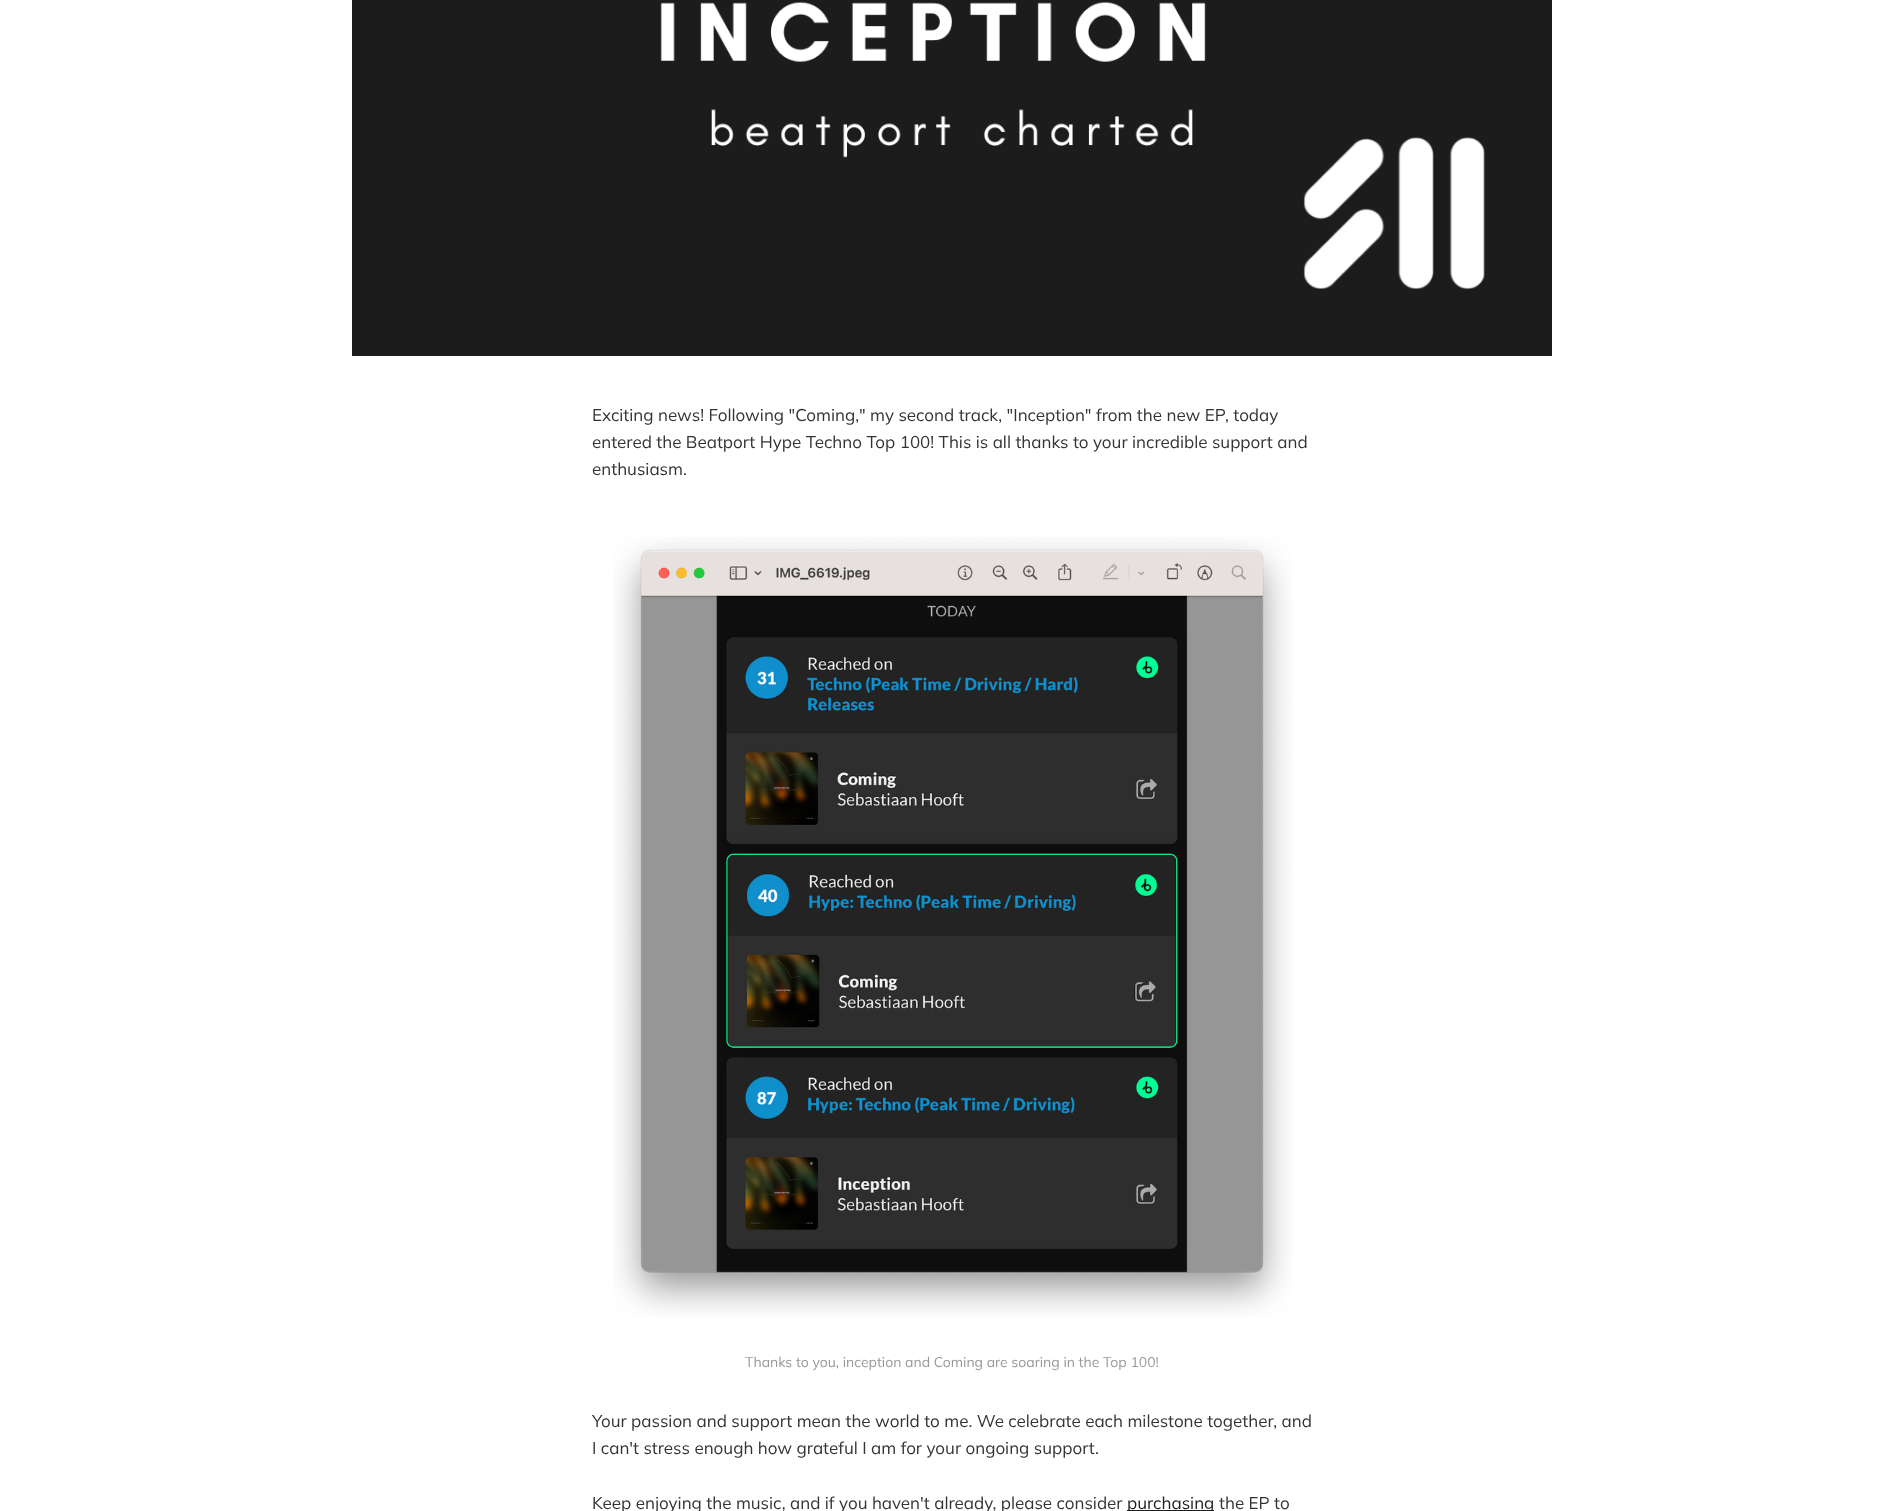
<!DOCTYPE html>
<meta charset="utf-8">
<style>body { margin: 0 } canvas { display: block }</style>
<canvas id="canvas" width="1904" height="1511"></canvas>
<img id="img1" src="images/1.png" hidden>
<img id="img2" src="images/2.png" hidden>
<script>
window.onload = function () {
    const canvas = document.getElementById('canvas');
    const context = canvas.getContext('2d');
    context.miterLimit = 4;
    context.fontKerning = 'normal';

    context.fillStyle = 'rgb(255, 255, 255)';
    context.fillRect(0, 0, 1904, 1511);
    context.drawImage(document.getElementById('img1'), 352, 0, 1200, 356);
    context.drawImage(document.getElementById('img2'), 613, 537, 679, 780);
    context.fillStyle = 'rgb(28, 28, 28)';
    context.fillRect(1127, 1510, 87, 1);
    context.font = '200 17px Mulish';
    context.fillStyle = 'rgb(51, 51, 51)';
    context.fillText('Exciting news! Following "Coming," my second track, "Inception" from the new EP, today', 592, 421);
    context.fillText('entered the Beatport Hype Techno Top 100! This is all thanks to your incredible support and', 592, 448);
    context.fillText('enthusiasm.', 592, 475);
    context.font = '200 14px Mulish';
    context.fillStyle = 'rgb(153, 153, 153)';
    context.fillText('Thanks to you, inception and Coming are soaring in the Top 100!', 745, 1367);
    context.font = '200 17px Mulish';
    context.fillStyle = 'rgb(51, 51, 51)';
    context.fillText('Your passion and support mean the world to me. We celebrate each milestone together, and', 592, 1427);
    context.fillText('I can\'t stress enough how grateful I am for your ongoing support.', 592, 1454);
    context.fillText('Keep enjoying the music, and if you haven\'t already, please consider', 592, 1509);
    context.fillStyle = 'rgb(28, 28, 28)';
    context.fillText('purchasing', 1127, 1509);
    context.fillStyle = 'rgb(51, 51, 51)';
    context.fillText('the EP to', 1219, 1509);
};
</script>
